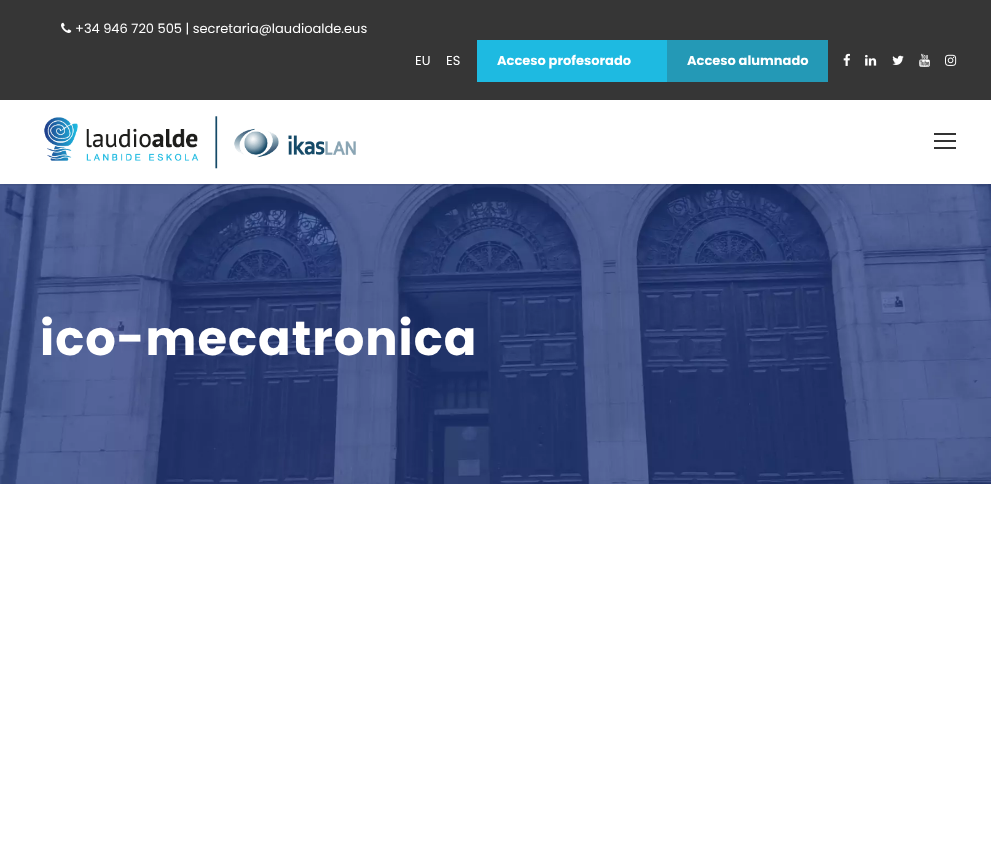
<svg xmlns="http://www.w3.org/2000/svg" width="991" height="860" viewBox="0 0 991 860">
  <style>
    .t1 { font: 13px Poppins; fill: #fff; }
    .t2 { font: bold 13px Poppins; fill: #fff; }
    .t3 { font: bold 48px Poppins; letter-spacing: 1px; fill: #fff; }
  </style>
  <defs>
    <clipPath id="clip1"><rect x="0" y="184" width="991" height="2"/></clipPath>
  </defs>
  <rect width="100%" height="100%" fill="#fff"/>
  <rect x="0" y="0" width="991" height="100" fill="#363636"/>
  <image x="61" y="22" width="11" height="11" href="images/1.png"/>
  <text x="75" y="33" class="t1">+34 946 720 505 | secretaria@laudioalde.eus</text>
  <text x="415" y="65" class="t1">EU</text>
  <text x="446" y="65" class="t1">ES</text>
  <rect x="477" y="40" width="190" height="42" fill="#1ebae1"/>
  <text x="497" y="65" class="t2">Acceso profesorado</text>
  <rect x="667" y="40" width="161" height="42" fill="#2499b6"/>
  <text x="687" y="65" class="t2">Acceso alumnado</text>
  <image x="843" y="53" width="7" height="13" href="images/2.png"/>
  <image x="865" y="54" width="12" height="12" href="images/3.png"/>
  <image x="892" y="55" width="12" height="10" href="images/4.png"/>
  <image x="919" y="53" width="11" height="14" href="images/5.png"/>
  <image x="945" y="54" width="12" height="12" href="images/6.png"/>
  <image x="0" y="184" width="991" height="300" href="images/8.png"/>
  <g clip-path="url(#clip1)">
    <rect x="0" y="101" width="991" height="84" fill="#0000001a" filter="blur(1px)"/>
  </g>
  <image x="44" y="116" width="312" height="53" href="images/7.png"/>
  <rect x="934" y="133" width="22" height="2" fill="#333"/>
  <rect x="934" y="140" width="22" height="2" fill="#333"/>
  <rect x="934" y="147" width="22" height="2" fill="#333"/>
  <text x="40" y="355" class="t3">ico-mecatronica</text>
</svg>
